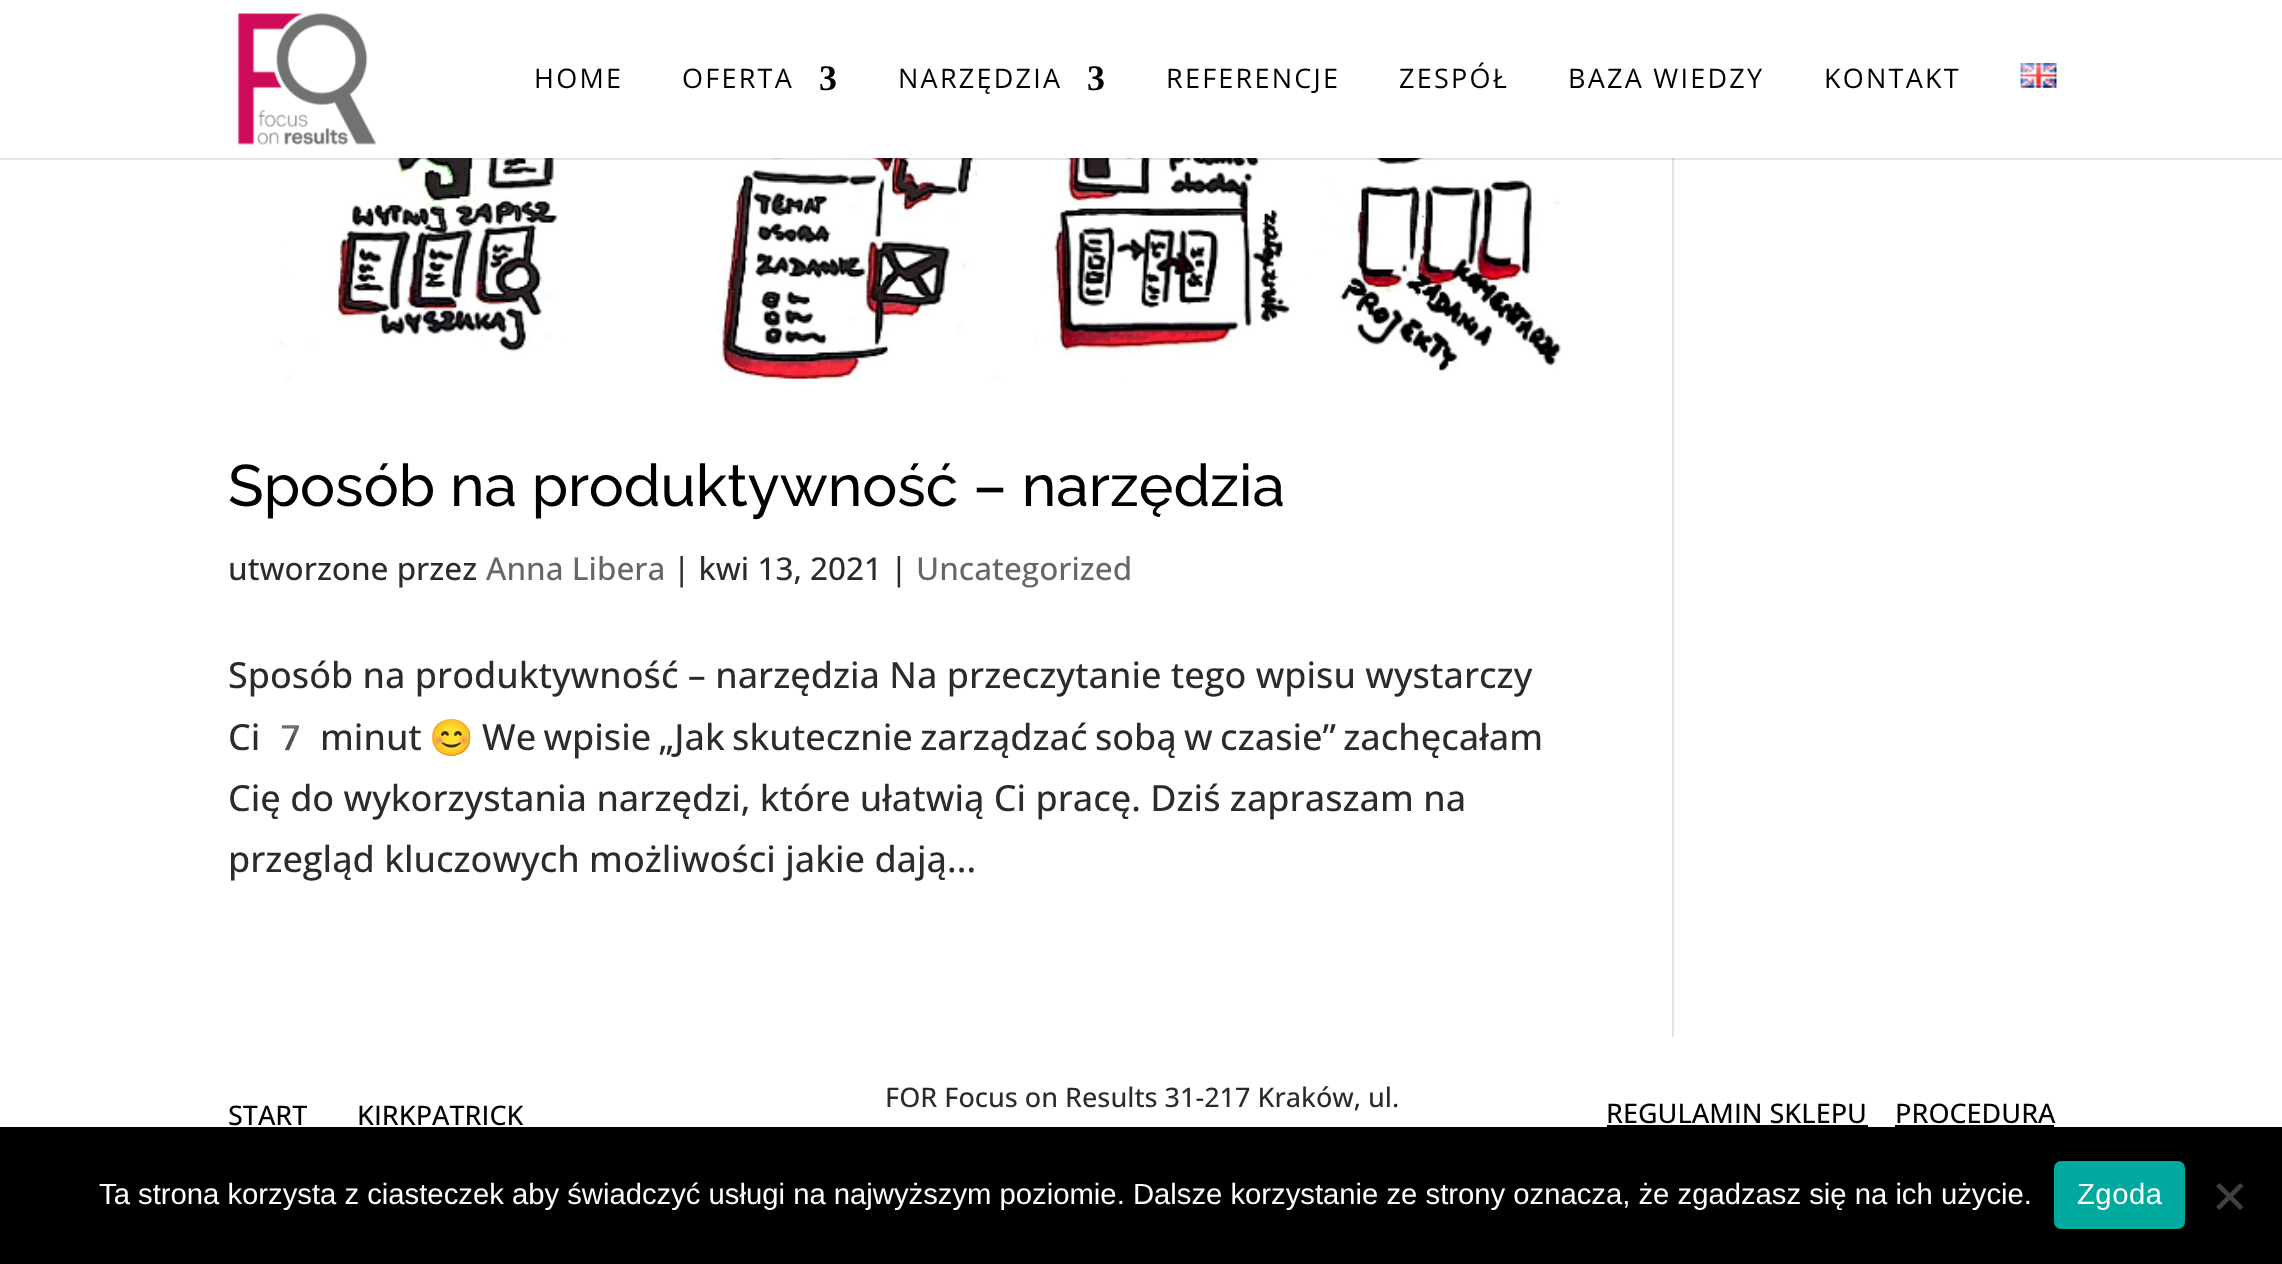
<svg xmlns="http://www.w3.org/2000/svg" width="2282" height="1264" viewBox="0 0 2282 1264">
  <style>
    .t1 { font: 27px Open Sans; letter-spacing: 2.25px; fill: #000; }
    .t2 { font: bold 36px Liberation Serif; letter-spacing: 2.25px; fill: #000; }
    .t3 { font: 500 58.5px Raleway; fill: #000; }
    .t4 { font: 500 31.5px Open Sans; fill: #2b2b2b; }
    .t5 { font: 500 31.5px Open Sans; fill: #666; }
    .t6 { font: 500 36px Open Sans; fill: #2b2b2b; }
    .t7 { font: 36px Noto Color Emoji; fill: #2b2b2b; }
    .t8 { font: 500 27px Open Sans; fill: #2b2b2b; }
    .t9 { font: 500 27px Open Sans; fill: #000; }
    .t10 { font: 29.25px Liberation Sans; fill: #fff; }
    .t11 { font: 29.25px Liberation Sans; letter-spacing: 0.5px; fill: #fff; }
  </style>
  <rect width="100%" height="100%" fill="#fff"/>
  <image x="279" y="158" width="1282" height="224" href="images/3.png"/>
  <rect x="1672" y="158" width="2" height="879" fill="#e2e2e2"/>
  <path d="M0 158V160H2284V2V158Z" fill="#0000001a"/>
  <image x="238" y="13" width="139" height="132" href="images/1.png"/>
  <text x="534" y="88" class="t1">HOME</text>
  <text x="682" y="88" class="t1">OFERTA</text>
  <text x="819" y="90" class="t2">3</text>
  <text x="898" y="88" class="t1">NARZĘDZIA</text>
  <text x="1087" y="90" class="t2">3</text>
  <text x="1166" y="88" class="t1">REFERENCJE</text>
  <text x="1399" y="88" class="t1">ZESPÓŁ</text>
  <text x="1568" y="88" class="t1">BAZA WIEDZY</text>
  <text x="1824" y="88" class="t1">KONTAKT</text>
  <image x="2020" y="63" width="37" height="25" href="images/2.png"/>
  <text x="228" y="506" class="t3">Sposób na produktywność – narzędzia</text>
  <text x="228" y="580" class="t4">utworzone przez</text>
  <text x="486" y="580" class="t5">Anna Libera</text>
  <text x="673" y="580" class="t4">| kwi 13, 2021 |</text>
  <text x="916" y="580" class="t5">Uncategorized</text>
  <text x="228" y="688" class="t6">Sposób na produktywność – narzędzia Na przeczytanie tego wpisu wystarczy</text>
  <text x="228" y="750" class="t6">Ci</text>
  <text x="268" y="750" class="t7">7</text>
  <text x="320" y="750" class="t6">minut</text>
  <text x="429" y="750" class="t7">😊</text>
  <text x="482" y="750" word-spacing="-2" class="t6">We wpisie „Jak skutecznie zarządzać sobą w czasie” zachęcałam</text>
  <text x="228" y="811" class="t6">Cię do wykorzystania narzędzi, które ułatwią Ci pracę. Dziś zapraszam na</text>
  <text x="228" y="872" class="t6">przegląd kluczowych możliwości jakie dają...</text>
  <text x="885" y="1107" class="t8">FOR Focus on Results 31-217 Kraków, ul.</text>
  <text x="228" y="1125" class="t9">START</text>
  <text x="357" y="1125" class="t9">KIRKPATRICK</text>
  <text x="1606" y="1123" class="t9">REGULAMIN SKLEPU</text>
  <rect x="1607" y="1125" width="261" height="2" fill="#000"/>
  <text x="1895" y="1123" class="t9">PROCEDURA</text>
  <rect x="1895" y="1125" width="159" height="2" fill="#000"/>
  <rect x="0" y="1127" width="2282" height="137" fill="#000"/>
  <text x="99" y="1204" class="t10">Ta strona korzysta z ciasteczek aby świadczyć usługi na najwyższym poziomie. Dalsze korzystanie ze strony oznacza, że zgadzasz się na ich użycie.</text>
  <rect x="2054" y="1161" width="131" height="68" rx="7" fill="#00a99d"/>
  <text x="2077" y="1204" class="t11">Zgoda</text>
  <path d="M2240 1183L2243.5 1186L2219.5 1210L2216 1207Z" fill="#404040"/>
  <path d="M2216 1186L2219.5 1183L2243.5 1207L2240 1210Z" fill="#404040"/>
</svg>
